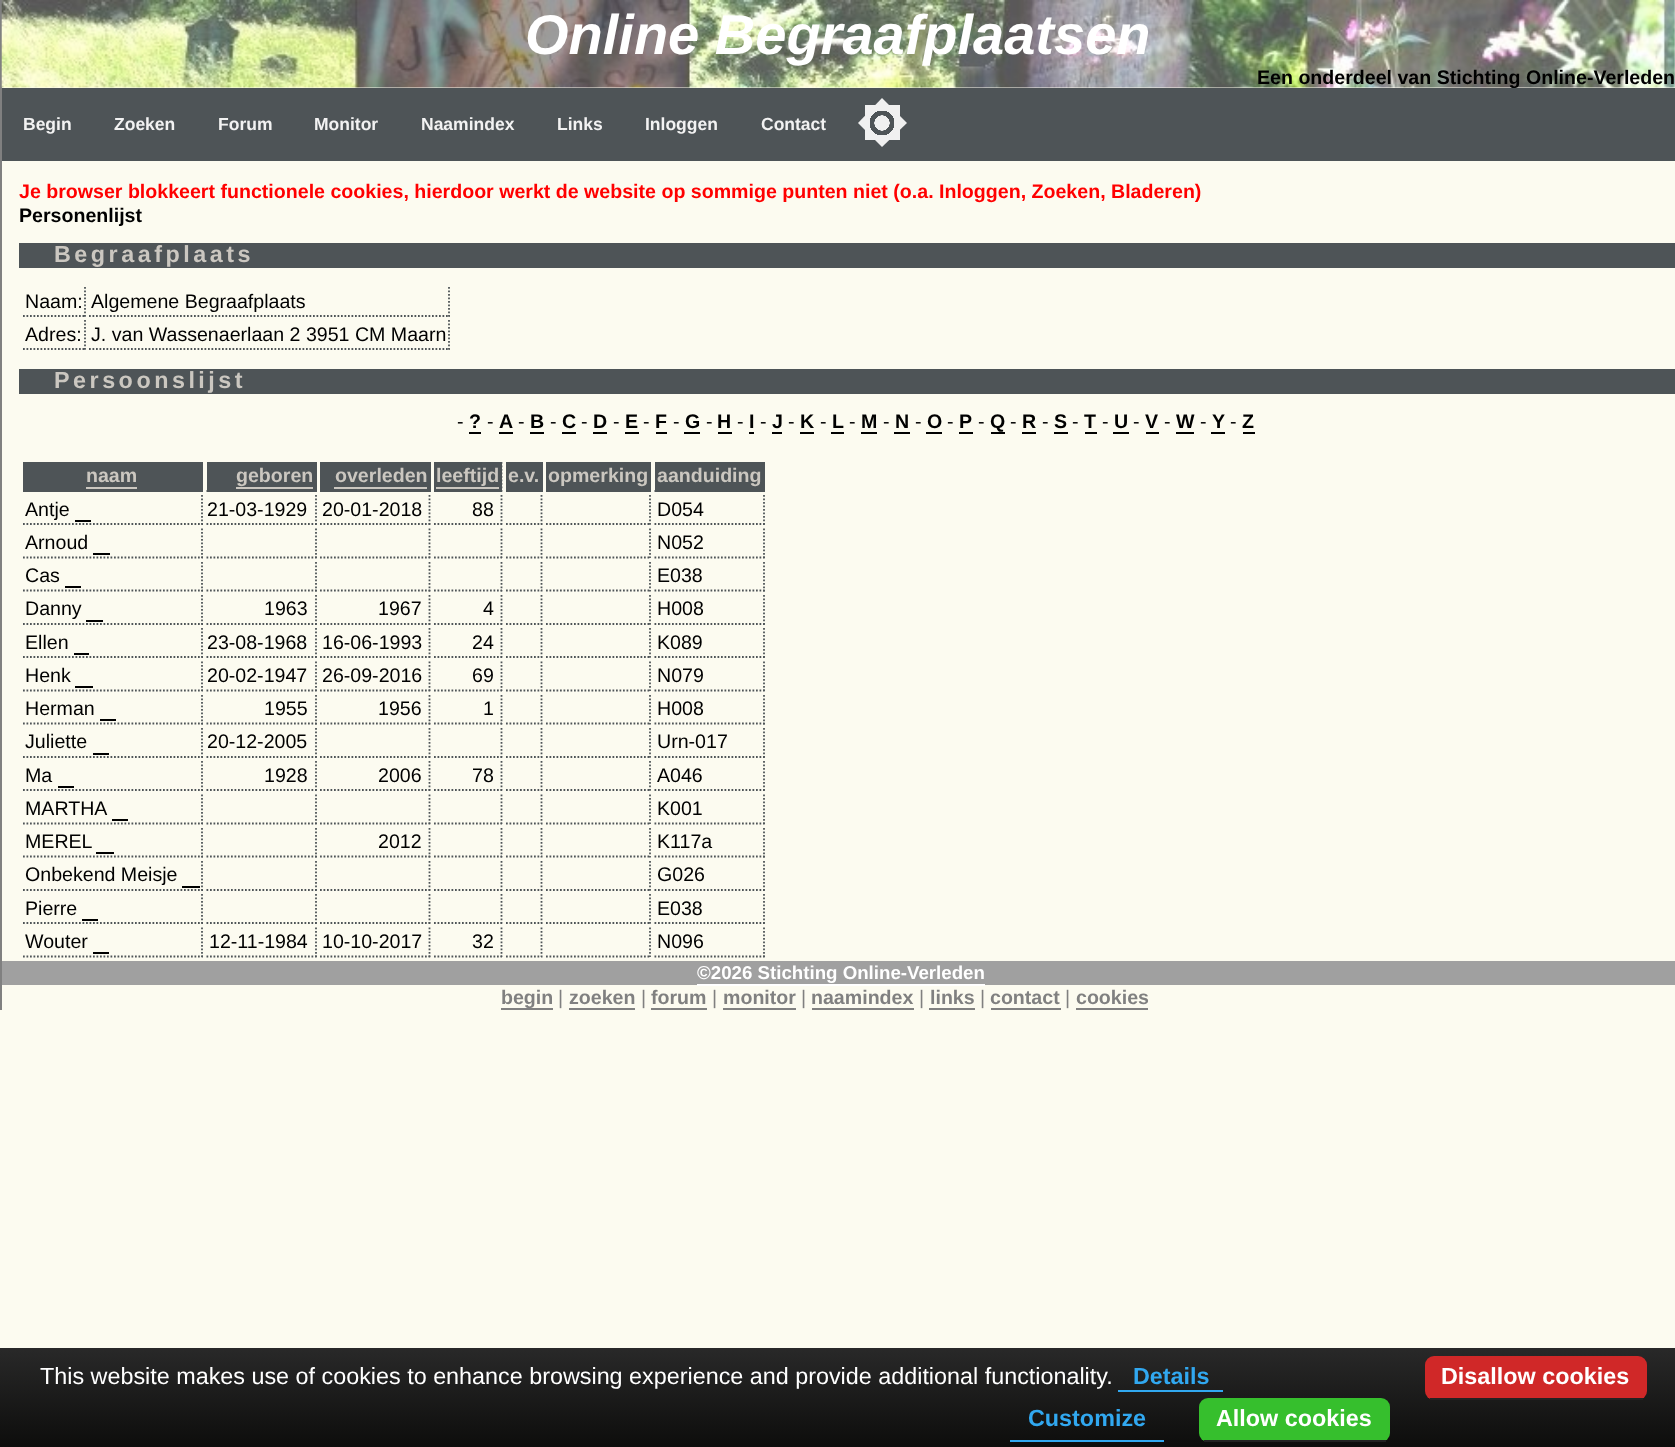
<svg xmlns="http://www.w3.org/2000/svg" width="1675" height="1447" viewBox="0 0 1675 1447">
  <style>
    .t1 { font: italic bold 56px Liberation Sans; fill: #fff; }
    .t2 { font: bold 19.6px Liberation Sans; fill: #000; }
    .t3 { font: bold 17.5px Liberation Sans; fill: #f2f2f2; }
    .t4 { font: bold 19.6px Liberation Sans; fill: #f00; }
    .t5 { font: bold 23.35px Liberation Sans; letter-spacing: 3.5px; fill: #cbc7c0; }
    .t6 { font: 19.6px Liberation Sans; fill: #000; }
    .t7 { font: bold 19.6px Liberation Sans; fill: #cbc7c0; }
    .t8 { font: bold 18.7px Liberation Sans; fill: #fff; }
    .t9 { font: bold 19.6px Liberation Sans; fill: #808080; }
    .t10 { font: 19.6px Liberation Sans; fill: #808080; }
    .t11 { font: 23.35px Liberation Sans; fill: #fff; }
    .t12 { font: bold 23.35px Liberation Sans; fill: #31a8f0; }
    .t13 { font: bold 23.35px Liberation Sans; fill: #fff; }
  </style>
  <defs>
    <radialGradient id="g1" gradientUnits="userSpaceOnUse" cx="882" cy="123" r="25"><stop offset="0" stop-color="#4e5457"/><stop offset="0.5" stop-color="#4e5457"/><stop offset="0.5" stop-color="#f0f0f0"/></radialGradient>
    <radialGradient id="g2" gradientUnits="userSpaceOnUse" cx="882" cy="123" r="25"><stop offset="0.3" stop-color="#f0f0f0"/><stop offset="0.31" stop-color="#f0f0f0" stop-opacity="0"/><stop offset="0.5" stop-color="#f0f0f0" stop-opacity="0"/><stop offset="0.5" stop-color="#f0f0f0"/></radialGradient>
    <linearGradient id="g3" gradientUnits="userSpaceOnUse" x1="844" y1="1347" x2="844" y2="1447"><stop offset="0" stop-color="#292929"/><stop offset="1" stop-color="#0d0d0c"/></linearGradient>
  </defs>
  <rect width="100%" height="100%" fill="#fcfbf0"/>
  <rect x="0" y="0" width="2" height="1010" fill="#808080"/>
  <image x="1" y="0" width="1674" height="88" href="images/1.png"/>
  <text x="525" y="54" class="t1">Online Begraafplaatsen</text>
  <text x="1257" y="84" class="t2">Een onderdeel van Stichting Online-Verleden</text>
  <rect x="2" y="88" width="1673" height="73" fill="#4e5457"/>
  <text x="23" y="130" class="t3">Begin</text>
  <text x="114" y="130" class="t3">Zoeken</text>
  <text x="218" y="130" class="t3">Forum</text>
  <text x="314" y="130" class="t3">Monitor</text>
  <text x="421" y="130" class="t3">Naamindex</text>
  <text x="557" y="130" class="t3">Links</text>
  <text x="645" y="130" class="t3">Inloggen</text>
  <text x="761" y="130" class="t3">Contact</text>
  <rect x="865" y="105" width="35" height="35" fill="url(#g1)"/>
  <path d="M882 147L858 123L882 98L907 123Z" fill="url(#g2)"/>
  <path d="M874.5 122L872 120.5H873.5Z" fill="#4e5457"/>
  <text x="19" y="198" class="t4">Je browser blokkeert functionele cookies, hierdoor werkt de website op sommige punten niet (o.a. Inloggen, Zoeken, Bladeren)</text>
  <text x="19" y="222" class="t2">Personenlijst</text>
  <rect x="19" y="243" width="1656" height="25" fill="#4e5457"/>
  <text x="54" y="262" class="t5">Begraafplaats</text>
  <path d="M85 287V317M23 316H86" fill="none" stroke="#4e5457" stroke-width="1.8" stroke-dasharray="1.75 1.75"/>
  <text x="25" y="308" class="t6">Naam:</text>
  <path d="M449 287V317" fill="none" stroke="#4e5457" stroke-width="1.8" stroke-dasharray="1.75 1.75"/>
  <path d="M89 316H450" fill="none" stroke="#4e5457" stroke-width="1.8" stroke-dasharray="1.75 1.75"/>
  <text x="91" y="308" class="t6">Algemene Begraafplaats</text>
  <path d="M85 320V350M23 349H86" fill="none" stroke="#4e5457" stroke-width="1.8" stroke-dasharray="1.75 1.75"/>
  <text x="25" y="341" class="t6">Adres:</text>
  <path d="M449 320V350" fill="none" stroke="#4e5457" stroke-width="1.8" stroke-dasharray="1.75 1.75"/>
  <path d="M89 349H450" fill="none" stroke="#4e5457" stroke-width="1.8" stroke-dasharray="1.75 1.75"/>
  <text x="91" y="341" class="t6">J. van Wassenaerlaan 2 3951 CM Maarn</text>
  <rect x="19" y="369" width="1656" height="25" fill="#4e5457"/>
  <text x="54" y="388" class="t5">Persoonslijst</text>
  <text x="457" y="428" class="t6">-</text>
  <text x="469" y="428" class="t2">?</text>
  <rect x="469" y="432" width="12" height="2" fill="#000"/>
  <text x="487" y="428" class="t6">-</text>
  <text x="499" y="428" class="t2">A</text>
  <rect x="499" y="432" width="14" height="2" fill="#000"/>
  <text x="518" y="428" class="t6">-</text>
  <text x="530" y="428" class="t2">B</text>
  <rect x="530" y="432" width="14" height="2" fill="#000"/>
  <text x="550" y="428" class="t6">-</text>
  <text x="562" y="428" class="t2">C</text>
  <rect x="562" y="432" width="14" height="2" fill="#000"/>
  <text x="581" y="428" class="t6">-</text>
  <text x="593" y="428" class="t2">D</text>
  <rect x="593" y="432" width="14" height="2" fill="#000"/>
  <text x="613" y="428" class="t6">-</text>
  <text x="625" y="428" class="t2">E</text>
  <rect x="625" y="432" width="14" height="2" fill="#000"/>
  <text x="643" y="428" class="t6">-</text>
  <text x="655" y="428" class="t2">F</text>
  <rect x="656" y="432" width="11" height="2" fill="#000"/>
  <text x="673" y="428" class="t6">-</text>
  <text x="685" y="428" class="t2">G</text>
  <rect x="684" y="432" width="16" height="2" fill="#000"/>
  <text x="706" y="428" class="t6">-</text>
  <text x="717" y="428" class="t2">H</text>
  <rect x="718" y="432" width="14" height="2" fill="#000"/>
  <text x="737" y="428" class="t6">-</text>
  <text x="749" y="428" class="t2">I</text>
  <rect x="749" y="432" width="5" height="2" fill="#000"/>
  <text x="760" y="428" class="t6">-</text>
  <text x="772" y="428" class="t2">J</text>
  <rect x="772" y="432" width="10" height="2" fill="#000"/>
  <text x="788" y="428" class="t6">-</text>
  <text x="800" y="428" class="t2">K</text>
  <rect x="800" y="432" width="14" height="2" fill="#000"/>
  <text x="820" y="428" class="t6">-</text>
  <text x="832" y="428" class="t2">L</text>
  <rect x="831" y="432" width="13" height="2" fill="#000"/>
  <text x="849" y="428" class="t6">-</text>
  <text x="861" y="428" class="t2">M</text>
  <rect x="861" y="432" width="16" height="2" fill="#000"/>
  <text x="883" y="428" class="t6">-</text>
  <text x="895" y="428" class="t2">N</text>
  <rect x="894" y="432" width="16" height="2" fill="#000"/>
  <text x="915" y="428" class="t6">-</text>
  <text x="927" y="428" class="t2">O</text>
  <rect x="926" y="432" width="16" height="2" fill="#000"/>
  <text x="947" y="428" class="t6">-</text>
  <text x="959" y="428" class="t2">P</text>
  <rect x="959" y="432" width="14" height="2" fill="#000"/>
  <text x="978" y="428" class="t6">-</text>
  <text x="990" y="428" class="t2">Q</text>
  <rect x="991" y="432" width="14" height="2" fill="#000"/>
  <text x="1010" y="428" class="t6">-</text>
  <text x="1022" y="428" class="t2">R</text>
  <rect x="1022" y="432" width="14" height="2" fill="#000"/>
  <text x="1042" y="428" class="t6">-</text>
  <text x="1054" y="428" class="t2">S</text>
  <rect x="1054" y="432" width="14" height="2" fill="#000"/>
  <text x="1072" y="428" class="t6">-</text>
  <text x="1084" y="428" class="t2">T</text>
  <rect x="1085" y="432" width="12" height="2" fill="#000"/>
  <text x="1102" y="428" class="t6">-</text>
  <text x="1114" y="428" class="t2">U</text>
  <rect x="1113" y="432" width="16" height="2" fill="#000"/>
  <text x="1133" y="428" class="t6">-</text>
  <text x="1145" y="428" class="t2">V</text>
  <rect x="1146" y="432" width="13" height="2" fill="#000"/>
  <text x="1164" y="428" class="t6">-</text>
  <text x="1176" y="428" class="t2">W</text>
  <rect x="1176" y="432" width="18" height="2" fill="#000"/>
  <text x="1200" y="428" class="t6">-</text>
  <text x="1212" y="428" class="t2">Y</text>
  <rect x="1211" y="432" width="14" height="2" fill="#000"/>
  <text x="1230" y="428" class="t6">-</text>
  <text x="1242" y="428" class="t2">Z</text>
  <rect x="1243" y="432" width="12" height="2" fill="#000"/>
  <rect x="23" y="462" width="180" height="30" fill="#4e5457"/>
  <text x="86" y="482" class="t7">naam</text>
  <rect x="86" y="487" width="51" height="2" fill="#cbc7c0"/>
  <rect x="207" y="462" width="110" height="30" fill="#4e5457"/>
  <path d="M206.5 491H317" fill="none" stroke="#4e5457" stroke-width="1.8" stroke-dasharray="1.75 1.75"/>
  <text x="236" y="482" class="t7">geboren</text>
  <rect x="236" y="487" width="77" height="2" fill="#cbc7c0"/>
  <rect x="320" y="462" width="111" height="30" fill="#4e5457"/>
  <text x="335" y="482" class="t7">overleden</text>
  <rect x="334" y="487" width="93" height="2" fill="#cbc7c0"/>
  <rect x="434" y="462" width="68" height="30" fill="#4e5457"/>
  <path d="M501.5 462V492" fill="none" stroke="#4e5457" stroke-width="1.8" stroke-dasharray="1.75 1.75"/>
  <text x="436" y="482" class="t7">leeftijd</text>
  <rect x="436" y="487" width="63" height="2" fill="#cbc7c0"/>
  <rect x="506" y="462" width="37" height="30" fill="#4e5457"/>
  <text x="508" y="482" class="t7">e.v.</text>
  <rect x="546" y="462" width="105" height="30" fill="#4e5457"/>
  <text x="548" y="482" class="t7">opmerking</text>
  <rect x="655" y="462" width="110" height="30" fill="#4e5457"/>
  <path d="M654.5 491H765" fill="none" stroke="#4e5457" stroke-width="1.8" stroke-dasharray="1.75 1.75"/>
  <text x="657" y="482" class="t7">aanduiding</text>
  <path d="M202 495V525" fill="none" stroke="#4e5457" stroke-width="1.8" stroke-dasharray="1.75 1.75"/>
  <path d="M23 524H203" fill="none" stroke="#4e5457" stroke-width="1.8" stroke-dasharray="1.75 1.75"/>
  <text x="25" y="516" class="t6">Antje</text>
  <rect x="75" y="520" width="16" height="2" fill="#000"/>
  <path d="M316 495V525" fill="none" stroke="#4e5457" stroke-width="1.8" stroke-dasharray="1.75 1.75"/>
  <path d="M206.5 524H317" fill="none" stroke="#4e5457" stroke-width="1.8" stroke-dasharray="1.75 1.75"/>
  <text x="207" y="516" class="t6">21-03-1929</text>
  <path d="M429.5 495V525" fill="none" stroke="#4e5457" stroke-width="1.8" stroke-dasharray="1.75 1.75"/>
  <path d="M320 524H430.5" fill="none" stroke="#4e5457" stroke-width="1.8" stroke-dasharray="1.75 1.75"/>
  <text x="322" y="516" class="t6">20-01-2018</text>
  <path d="M501.5 495V525" fill="none" stroke="#4e5457" stroke-width="1.8" stroke-dasharray="1.75 1.75"/>
  <path d="M434 524H502" fill="none" stroke="#4e5457" stroke-width="1.8" stroke-dasharray="1.75 1.75"/>
  <text x="472" y="516" class="t6">88</text>
  <path d="M541.5 495V525M506 524H542.5" fill="none" stroke="#4e5457" stroke-width="1.8" stroke-dasharray="1.75 1.75"/>
  <path d="M650 495V525" fill="none" stroke="#4e5457" stroke-width="1.8" stroke-dasharray="1.75 1.75"/>
  <path d="M546 524H651" fill="none" stroke="#4e5457" stroke-width="1.8" stroke-dasharray="1.75 1.75"/>
  <path d="M764 495V525" fill="none" stroke="#4e5457" stroke-width="1.8" stroke-dasharray="1.75 1.75"/>
  <path d="M654.5 524H765" fill="none" stroke="#4e5457" stroke-width="1.8" stroke-dasharray="1.75 1.75"/>
  <text x="657" y="516" class="t6">D054</text>
  <path d="M202 528.5V558" fill="none" stroke="#4e5457" stroke-width="1.8" stroke-dasharray="1.75 1.75"/>
  <path d="M23 557.5H203" fill="none" stroke="#4e5457" stroke-width="1.8" stroke-dasharray="1.75 1.75"/>
  <text x="25" y="549" class="t6">Arnoud</text>
  <rect x="93" y="553" width="17" height="2" fill="#000"/>
  <path d="M316 528.5V558" fill="none" stroke="#4e5457" stroke-width="1.8" stroke-dasharray="1.75 1.75"/>
  <path d="M206.5 557.5H317" fill="none" stroke="#4e5457" stroke-width="1.8" stroke-dasharray="1.75 1.75"/>
  <path d="M429.5 528.5V558" fill="none" stroke="#4e5457" stroke-width="1.8" stroke-dasharray="1.75 1.75"/>
  <path d="M320 557.5H430.5" fill="none" stroke="#4e5457" stroke-width="1.8" stroke-dasharray="1.75 1.75"/>
  <path d="M501.5 528.5V558" fill="none" stroke="#4e5457" stroke-width="1.8" stroke-dasharray="1.75 1.75"/>
  <path d="M434 557.5H502" fill="none" stroke="#4e5457" stroke-width="1.8" stroke-dasharray="1.75 1.75"/>
  <path d="M541.5 528.5V558M506 557.5H542.5" fill="none" stroke="#4e5457" stroke-width="1.8" stroke-dasharray="1.75 1.75"/>
  <path d="M650 528.5V558" fill="none" stroke="#4e5457" stroke-width="1.8" stroke-dasharray="1.75 1.75"/>
  <path d="M546 557.5H651" fill="none" stroke="#4e5457" stroke-width="1.8" stroke-dasharray="1.75 1.75"/>
  <path d="M764 528.5V558" fill="none" stroke="#4e5457" stroke-width="1.8" stroke-dasharray="1.75 1.75"/>
  <path d="M654.5 557.5H765" fill="none" stroke="#4e5457" stroke-width="1.8" stroke-dasharray="1.75 1.75"/>
  <text x="657" y="549" class="t6">N052</text>
  <path d="M202 562V591.5" fill="none" stroke="#4e5457" stroke-width="1.8" stroke-dasharray="1.75 1.75"/>
  <path d="M23 590.5H203" fill="none" stroke="#4e5457" stroke-width="1.8" stroke-dasharray="1.75 1.75"/>
  <text x="25" y="582" class="t6">Cas</text>
  <rect x="65" y="586" width="16" height="2" fill="#000"/>
  <path d="M316 562V591.5" fill="none" stroke="#4e5457" stroke-width="1.8" stroke-dasharray="1.75 1.75"/>
  <path d="M206.5 590.5H317" fill="none" stroke="#4e5457" stroke-width="1.8" stroke-dasharray="1.75 1.75"/>
  <path d="M429.5 562V591.5" fill="none" stroke="#4e5457" stroke-width="1.8" stroke-dasharray="1.75 1.75"/>
  <path d="M320 590.5H430.5" fill="none" stroke="#4e5457" stroke-width="1.8" stroke-dasharray="1.75 1.75"/>
  <path d="M501.5 562V591.5" fill="none" stroke="#4e5457" stroke-width="1.8" stroke-dasharray="1.75 1.75"/>
  <path d="M434 590.5H502" fill="none" stroke="#4e5457" stroke-width="1.8" stroke-dasharray="1.75 1.75"/>
  <path d="M541.5 562V591.5M506 590.5H542.5" fill="none" stroke="#4e5457" stroke-width="1.8" stroke-dasharray="1.75 1.75"/>
  <path d="M650 562V591.5" fill="none" stroke="#4e5457" stroke-width="1.8" stroke-dasharray="1.75 1.75"/>
  <path d="M546 590.5H651" fill="none" stroke="#4e5457" stroke-width="1.8" stroke-dasharray="1.75 1.75"/>
  <path d="M764 562V591.5" fill="none" stroke="#4e5457" stroke-width="1.8" stroke-dasharray="1.75 1.75"/>
  <path d="M654.5 590.5H765" fill="none" stroke="#4e5457" stroke-width="1.8" stroke-dasharray="1.75 1.75"/>
  <text x="657" y="582" class="t6">E038</text>
  <path d="M202 595V625" fill="none" stroke="#4e5457" stroke-width="1.8" stroke-dasharray="1.75 1.75"/>
  <path d="M23 624H203" fill="none" stroke="#4e5457" stroke-width="1.8" stroke-dasharray="1.75 1.75"/>
  <text x="25" y="615" class="t6">Danny</text>
  <rect x="86" y="620" width="17" height="2" fill="#000"/>
  <path d="M316 595V625" fill="none" stroke="#4e5457" stroke-width="1.8" stroke-dasharray="1.75 1.75"/>
  <path d="M206.5 624H317" fill="none" stroke="#4e5457" stroke-width="1.8" stroke-dasharray="1.75 1.75"/>
  <text x="264" y="615" class="t6">1963</text>
  <path d="M429.5 595V625" fill="none" stroke="#4e5457" stroke-width="1.8" stroke-dasharray="1.75 1.75"/>
  <path d="M320 624H430.5" fill="none" stroke="#4e5457" stroke-width="1.8" stroke-dasharray="1.75 1.75"/>
  <text x="378" y="615" class="t6">1967</text>
  <path d="M501.5 595V625" fill="none" stroke="#4e5457" stroke-width="1.8" stroke-dasharray="1.75 1.75"/>
  <path d="M434 624H502" fill="none" stroke="#4e5457" stroke-width="1.8" stroke-dasharray="1.75 1.75"/>
  <text x="483" y="615" class="t6">4</text>
  <path d="M541.5 595V625M506 624H542.5" fill="none" stroke="#4e5457" stroke-width="1.8" stroke-dasharray="1.75 1.75"/>
  <path d="M650 595V625" fill="none" stroke="#4e5457" stroke-width="1.8" stroke-dasharray="1.75 1.75"/>
  <path d="M546 624H651" fill="none" stroke="#4e5457" stroke-width="1.8" stroke-dasharray="1.75 1.75"/>
  <path d="M764 595V625" fill="none" stroke="#4e5457" stroke-width="1.8" stroke-dasharray="1.75 1.75"/>
  <path d="M654.5 624H765" fill="none" stroke="#4e5457" stroke-width="1.8" stroke-dasharray="1.75 1.75"/>
  <text x="657" y="615" class="t6">H008</text>
  <path d="M202 628V658" fill="none" stroke="#4e5457" stroke-width="1.8" stroke-dasharray="1.75 1.75"/>
  <path d="M23 657H203" fill="none" stroke="#4e5457" stroke-width="1.8" stroke-dasharray="1.75 1.75"/>
  <text x="25" y="649" class="t6">Ellen</text>
  <rect x="74" y="653" width="15" height="2" fill="#000"/>
  <path d="M316 628V658" fill="none" stroke="#4e5457" stroke-width="1.8" stroke-dasharray="1.75 1.75"/>
  <path d="M206.5 657H317" fill="none" stroke="#4e5457" stroke-width="1.8" stroke-dasharray="1.75 1.75"/>
  <text x="207" y="649" class="t6">23-08-1968</text>
  <path d="M429.5 628V658" fill="none" stroke="#4e5457" stroke-width="1.8" stroke-dasharray="1.75 1.75"/>
  <path d="M320 657H430.5" fill="none" stroke="#4e5457" stroke-width="1.8" stroke-dasharray="1.75 1.75"/>
  <text x="322" y="649" class="t6">16-06-1993</text>
  <path d="M501.5 628V658" fill="none" stroke="#4e5457" stroke-width="1.8" stroke-dasharray="1.75 1.75"/>
  <path d="M434 657H502" fill="none" stroke="#4e5457" stroke-width="1.8" stroke-dasharray="1.75 1.75"/>
  <text x="472" y="649" class="t6">24</text>
  <path d="M541.5 628V658M506 657H542.5" fill="none" stroke="#4e5457" stroke-width="1.8" stroke-dasharray="1.75 1.75"/>
  <path d="M650 628V658" fill="none" stroke="#4e5457" stroke-width="1.8" stroke-dasharray="1.75 1.75"/>
  <path d="M546 657H651" fill="none" stroke="#4e5457" stroke-width="1.8" stroke-dasharray="1.75 1.75"/>
  <path d="M764 628V658" fill="none" stroke="#4e5457" stroke-width="1.8" stroke-dasharray="1.75 1.75"/>
  <path d="M654.5 657H765" fill="none" stroke="#4e5457" stroke-width="1.8" stroke-dasharray="1.75 1.75"/>
  <text x="657" y="649" class="t6">K089</text>
  <path d="M202 661.5V691" fill="none" stroke="#4e5457" stroke-width="1.8" stroke-dasharray="1.75 1.75"/>
  <path d="M23 690.5H203" fill="none" stroke="#4e5457" stroke-width="1.8" stroke-dasharray="1.75 1.75"/>
  <text x="25" y="682" class="t6">Henk</text>
  <rect x="75" y="686" width="18" height="2" fill="#000"/>
  <path d="M316 661.5V691" fill="none" stroke="#4e5457" stroke-width="1.8" stroke-dasharray="1.75 1.75"/>
  <path d="M206.5 690.5H317" fill="none" stroke="#4e5457" stroke-width="1.8" stroke-dasharray="1.75 1.75"/>
  <text x="207" y="682" class="t6">20-02-1947</text>
  <path d="M429.5 661.5V691" fill="none" stroke="#4e5457" stroke-width="1.8" stroke-dasharray="1.75 1.75"/>
  <path d="M320 690.5H430.5" fill="none" stroke="#4e5457" stroke-width="1.8" stroke-dasharray="1.75 1.75"/>
  <text x="322" y="682" class="t6">26-09-2016</text>
  <path d="M501.5 661.5V691" fill="none" stroke="#4e5457" stroke-width="1.8" stroke-dasharray="1.75 1.75"/>
  <path d="M434 690.5H502" fill="none" stroke="#4e5457" stroke-width="1.8" stroke-dasharray="1.75 1.75"/>
  <text x="472" y="682" class="t6">69</text>
  <path d="M541.5 661.5V691M506 690.5H542.5" fill="none" stroke="#4e5457" stroke-width="1.8" stroke-dasharray="1.75 1.75"/>
  <path d="M650 661.5V691" fill="none" stroke="#4e5457" stroke-width="1.8" stroke-dasharray="1.75 1.75"/>
  <path d="M546 690.5H651" fill="none" stroke="#4e5457" stroke-width="1.8" stroke-dasharray="1.75 1.75"/>
  <path d="M764 661.5V691" fill="none" stroke="#4e5457" stroke-width="1.8" stroke-dasharray="1.75 1.75"/>
  <path d="M654.5 690.5H765" fill="none" stroke="#4e5457" stroke-width="1.8" stroke-dasharray="1.75 1.75"/>
  <text x="657" y="682" class="t6">N079</text>
  <path d="M202 695V724.5" fill="none" stroke="#4e5457" stroke-width="1.8" stroke-dasharray="1.75 1.75"/>
  <path d="M23 723.5H203" fill="none" stroke="#4e5457" stroke-width="1.8" stroke-dasharray="1.75 1.75"/>
  <text x="25" y="715" class="t6">Herman</text>
  <rect x="100" y="719" width="16" height="2" fill="#000"/>
  <path d="M316 695V724.5" fill="none" stroke="#4e5457" stroke-width="1.8" stroke-dasharray="1.75 1.75"/>
  <path d="M206.5 723.5H317" fill="none" stroke="#4e5457" stroke-width="1.8" stroke-dasharray="1.75 1.75"/>
  <text x="264" y="715" class="t6">1955</text>
  <path d="M429.5 695V724.5" fill="none" stroke="#4e5457" stroke-width="1.8" stroke-dasharray="1.75 1.75"/>
  <path d="M320 723.5H430.5" fill="none" stroke="#4e5457" stroke-width="1.8" stroke-dasharray="1.75 1.75"/>
  <text x="378" y="715" class="t6">1956</text>
  <path d="M501.5 695V724.5" fill="none" stroke="#4e5457" stroke-width="1.8" stroke-dasharray="1.75 1.75"/>
  <path d="M434 723.5H502" fill="none" stroke="#4e5457" stroke-width="1.8" stroke-dasharray="1.75 1.75"/>
  <text x="483" y="715" class="t6">1</text>
  <path d="M541.5 695V724.5M506 723.5H542.5" fill="none" stroke="#4e5457" stroke-width="1.8" stroke-dasharray="1.75 1.75"/>
  <path d="M650 695V724.5" fill="none" stroke="#4e5457" stroke-width="1.8" stroke-dasharray="1.75 1.75"/>
  <path d="M546 723.5H651" fill="none" stroke="#4e5457" stroke-width="1.8" stroke-dasharray="1.75 1.75"/>
  <path d="M764 695V724.5" fill="none" stroke="#4e5457" stroke-width="1.8" stroke-dasharray="1.75 1.75"/>
  <path d="M654.5 723.5H765" fill="none" stroke="#4e5457" stroke-width="1.8" stroke-dasharray="1.75 1.75"/>
  <text x="657" y="715" class="t6">H008</text>
  <path d="M202 728V758" fill="none" stroke="#4e5457" stroke-width="1.8" stroke-dasharray="1.75 1.75"/>
  <path d="M23 757H203" fill="none" stroke="#4e5457" stroke-width="1.8" stroke-dasharray="1.75 1.75"/>
  <text x="25" y="748" class="t6">Juliette</text>
  <rect x="93" y="753" width="16" height="2" fill="#000"/>
  <path d="M316 728V758" fill="none" stroke="#4e5457" stroke-width="1.8" stroke-dasharray="1.75 1.75"/>
  <path d="M206.5 757H317" fill="none" stroke="#4e5457" stroke-width="1.8" stroke-dasharray="1.75 1.75"/>
  <text x="207" y="748" class="t6">20-12-2005</text>
  <path d="M429.5 728V758" fill="none" stroke="#4e5457" stroke-width="1.8" stroke-dasharray="1.75 1.75"/>
  <path d="M320 757H430.5" fill="none" stroke="#4e5457" stroke-width="1.8" stroke-dasharray="1.75 1.75"/>
  <path d="M501.5 728V758" fill="none" stroke="#4e5457" stroke-width="1.8" stroke-dasharray="1.75 1.75"/>
  <path d="M434 757H502" fill="none" stroke="#4e5457" stroke-width="1.8" stroke-dasharray="1.75 1.75"/>
  <path d="M541.5 728V758M506 757H542.5" fill="none" stroke="#4e5457" stroke-width="1.8" stroke-dasharray="1.75 1.75"/>
  <path d="M650 728V758" fill="none" stroke="#4e5457" stroke-width="1.8" stroke-dasharray="1.75 1.75"/>
  <path d="M546 757H651" fill="none" stroke="#4e5457" stroke-width="1.8" stroke-dasharray="1.75 1.75"/>
  <path d="M764 728V758" fill="none" stroke="#4e5457" stroke-width="1.8" stroke-dasharray="1.75 1.75"/>
  <path d="M654.5 757H765" fill="none" stroke="#4e5457" stroke-width="1.8" stroke-dasharray="1.75 1.75"/>
  <text x="657" y="748" class="t6">Urn-017</text>
  <path d="M202 761V791" fill="none" stroke="#4e5457" stroke-width="1.8" stroke-dasharray="1.75 1.75"/>
  <path d="M23 790H203" fill="none" stroke="#4e5457" stroke-width="1.8" stroke-dasharray="1.75 1.75"/>
  <text x="25" y="782" class="t6">Ma</text>
  <rect x="58" y="786" width="16" height="2" fill="#000"/>
  <path d="M316 761V791" fill="none" stroke="#4e5457" stroke-width="1.8" stroke-dasharray="1.75 1.75"/>
  <path d="M206.5 790H317" fill="none" stroke="#4e5457" stroke-width="1.8" stroke-dasharray="1.75 1.75"/>
  <text x="264" y="782" class="t6">1928</text>
  <path d="M429.5 761V791" fill="none" stroke="#4e5457" stroke-width="1.8" stroke-dasharray="1.75 1.75"/>
  <path d="M320 790H430.5" fill="none" stroke="#4e5457" stroke-width="1.8" stroke-dasharray="1.75 1.75"/>
  <text x="378" y="782" class="t6">2006</text>
  <path d="M501.5 761V791" fill="none" stroke="#4e5457" stroke-width="1.8" stroke-dasharray="1.75 1.75"/>
  <path d="M434 790H502" fill="none" stroke="#4e5457" stroke-width="1.8" stroke-dasharray="1.75 1.75"/>
  <text x="472" y="782" class="t6">78</text>
  <path d="M541.5 761V791M506 790H542.5" fill="none" stroke="#4e5457" stroke-width="1.8" stroke-dasharray="1.75 1.75"/>
  <path d="M650 761V791" fill="none" stroke="#4e5457" stroke-width="1.8" stroke-dasharray="1.75 1.75"/>
  <path d="M546 790H651" fill="none" stroke="#4e5457" stroke-width="1.8" stroke-dasharray="1.75 1.75"/>
  <path d="M764 761V791" fill="none" stroke="#4e5457" stroke-width="1.8" stroke-dasharray="1.75 1.75"/>
  <path d="M654.5 790H765" fill="none" stroke="#4e5457" stroke-width="1.8" stroke-dasharray="1.75 1.75"/>
  <text x="657" y="782" class="t6">A046</text>
  <path d="M202 794.5V824" fill="none" stroke="#4e5457" stroke-width="1.8" stroke-dasharray="1.75 1.75"/>
  <path d="M23 823.5H203" fill="none" stroke="#4e5457" stroke-width="1.8" stroke-dasharray="1.75 1.75"/>
  <text x="25" y="815" class="t6">MARTHA</text>
  <rect x="112" y="819" width="16" height="2" fill="#000"/>
  <path d="M316 794.5V824" fill="none" stroke="#4e5457" stroke-width="1.8" stroke-dasharray="1.75 1.75"/>
  <path d="M206.5 823.5H317" fill="none" stroke="#4e5457" stroke-width="1.8" stroke-dasharray="1.75 1.75"/>
  <path d="M429.5 794.5V824" fill="none" stroke="#4e5457" stroke-width="1.8" stroke-dasharray="1.75 1.75"/>
  <path d="M320 823.5H430.5" fill="none" stroke="#4e5457" stroke-width="1.8" stroke-dasharray="1.75 1.75"/>
  <path d="M501.5 794.5V824" fill="none" stroke="#4e5457" stroke-width="1.8" stroke-dasharray="1.75 1.75"/>
  <path d="M434 823.5H502" fill="none" stroke="#4e5457" stroke-width="1.8" stroke-dasharray="1.75 1.75"/>
  <path d="M541.5 794.5V824M506 823.5H542.5" fill="none" stroke="#4e5457" stroke-width="1.8" stroke-dasharray="1.75 1.75"/>
  <path d="M650 794.5V824" fill="none" stroke="#4e5457" stroke-width="1.8" stroke-dasharray="1.75 1.75"/>
  <path d="M546 823.5H651" fill="none" stroke="#4e5457" stroke-width="1.8" stroke-dasharray="1.75 1.75"/>
  <path d="M764 794.5V824" fill="none" stroke="#4e5457" stroke-width="1.8" stroke-dasharray="1.75 1.75"/>
  <path d="M654.5 823.5H765" fill="none" stroke="#4e5457" stroke-width="1.8" stroke-dasharray="1.75 1.75"/>
  <text x="657" y="815" class="t6">K001</text>
  <path d="M202 828V857.5" fill="none" stroke="#4e5457" stroke-width="1.8" stroke-dasharray="1.75 1.75"/>
  <path d="M23 856.5H203" fill="none" stroke="#4e5457" stroke-width="1.8" stroke-dasharray="1.75 1.75"/>
  <text x="25" y="848" class="t6">MEREL</text>
  <rect x="96" y="852" width="18" height="2" fill="#000"/>
  <path d="M316 828V857.5" fill="none" stroke="#4e5457" stroke-width="1.8" stroke-dasharray="1.75 1.75"/>
  <path d="M206.5 856.5H317" fill="none" stroke="#4e5457" stroke-width="1.8" stroke-dasharray="1.75 1.75"/>
  <path d="M429.5 828V857.5" fill="none" stroke="#4e5457" stroke-width="1.8" stroke-dasharray="1.75 1.75"/>
  <path d="M320 856.5H430.5" fill="none" stroke="#4e5457" stroke-width="1.8" stroke-dasharray="1.75 1.75"/>
  <text x="378" y="848" class="t6">2012</text>
  <path d="M501.5 828V857.5" fill="none" stroke="#4e5457" stroke-width="1.8" stroke-dasharray="1.75 1.75"/>
  <path d="M434 856.5H502" fill="none" stroke="#4e5457" stroke-width="1.8" stroke-dasharray="1.75 1.75"/>
  <path d="M541.5 828V857.5M506 856.5H542.5" fill="none" stroke="#4e5457" stroke-width="1.8" stroke-dasharray="1.75 1.75"/>
  <path d="M650 828V857.5" fill="none" stroke="#4e5457" stroke-width="1.8" stroke-dasharray="1.75 1.75"/>
  <path d="M546 856.5H651" fill="none" stroke="#4e5457" stroke-width="1.8" stroke-dasharray="1.75 1.75"/>
  <path d="M764 828V857.5" fill="none" stroke="#4e5457" stroke-width="1.8" stroke-dasharray="1.75 1.75"/>
  <path d="M654.5 856.5H765" fill="none" stroke="#4e5457" stroke-width="1.8" stroke-dasharray="1.75 1.75"/>
  <text x="657" y="848" class="t6">K117a</text>
  <path d="M202 861V891" fill="none" stroke="#4e5457" stroke-width="1.8" stroke-dasharray="1.75 1.75"/>
  <path d="M23 890H203" fill="none" stroke="#4e5457" stroke-width="1.8" stroke-dasharray="1.75 1.75"/>
  <text x="25" y="881" class="t6">Onbekend Meisje</text>
  <rect x="182" y="886" width="18" height="2" fill="#000"/>
  <path d="M316 861V891" fill="none" stroke="#4e5457" stroke-width="1.8" stroke-dasharray="1.75 1.75"/>
  <path d="M206.5 890H317" fill="none" stroke="#4e5457" stroke-width="1.8" stroke-dasharray="1.75 1.75"/>
  <path d="M429.5 861V891" fill="none" stroke="#4e5457" stroke-width="1.8" stroke-dasharray="1.75 1.75"/>
  <path d="M320 890H430.5" fill="none" stroke="#4e5457" stroke-width="1.8" stroke-dasharray="1.75 1.75"/>
  <path d="M501.5 861V891" fill="none" stroke="#4e5457" stroke-width="1.8" stroke-dasharray="1.75 1.75"/>
  <path d="M434 890H502" fill="none" stroke="#4e5457" stroke-width="1.8" stroke-dasharray="1.75 1.75"/>
  <path d="M541.5 861V891M506 890H542.5" fill="none" stroke="#4e5457" stroke-width="1.8" stroke-dasharray="1.75 1.75"/>
  <path d="M650 861V891" fill="none" stroke="#4e5457" stroke-width="1.8" stroke-dasharray="1.75 1.75"/>
  <path d="M546 890H651" fill="none" stroke="#4e5457" stroke-width="1.8" stroke-dasharray="1.75 1.75"/>
  <path d="M764 861V891" fill="none" stroke="#4e5457" stroke-width="1.8" stroke-dasharray="1.75 1.75"/>
  <path d="M654.5 890H765" fill="none" stroke="#4e5457" stroke-width="1.8" stroke-dasharray="1.75 1.75"/>
  <text x="657" y="881" class="t6">G026</text>
  <path d="M202 894V924" fill="none" stroke="#4e5457" stroke-width="1.8" stroke-dasharray="1.75 1.75"/>
  <path d="M23 923H203" fill="none" stroke="#4e5457" stroke-width="1.8" stroke-dasharray="1.75 1.75"/>
  <text x="25" y="915" class="t6">Pierre</text>
  <rect x="82" y="919" width="16" height="2" fill="#000"/>
  <path d="M316 894V924" fill="none" stroke="#4e5457" stroke-width="1.8" stroke-dasharray="1.75 1.75"/>
  <path d="M206.5 923H317" fill="none" stroke="#4e5457" stroke-width="1.8" stroke-dasharray="1.75 1.75"/>
  <path d="M429.5 894V924" fill="none" stroke="#4e5457" stroke-width="1.8" stroke-dasharray="1.75 1.75"/>
  <path d="M320 923H430.5" fill="none" stroke="#4e5457" stroke-width="1.8" stroke-dasharray="1.75 1.75"/>
  <path d="M501.5 894V924" fill="none" stroke="#4e5457" stroke-width="1.8" stroke-dasharray="1.75 1.75"/>
  <path d="M434 923H502" fill="none" stroke="#4e5457" stroke-width="1.8" stroke-dasharray="1.75 1.75"/>
  <path d="M541.5 894V924M506 923H542.5" fill="none" stroke="#4e5457" stroke-width="1.8" stroke-dasharray="1.75 1.75"/>
  <path d="M650 894V924" fill="none" stroke="#4e5457" stroke-width="1.8" stroke-dasharray="1.75 1.75"/>
  <path d="M546 923H651" fill="none" stroke="#4e5457" stroke-width="1.8" stroke-dasharray="1.75 1.75"/>
  <path d="M764 894V924" fill="none" stroke="#4e5457" stroke-width="1.8" stroke-dasharray="1.75 1.75"/>
  <path d="M654.5 923H765" fill="none" stroke="#4e5457" stroke-width="1.8" stroke-dasharray="1.75 1.75"/>
  <text x="657" y="915" class="t6">E038</text>
  <path d="M202 927.5V957" fill="none" stroke="#4e5457" stroke-width="1.8" stroke-dasharray="1.75 1.75"/>
  <path d="M23 956.5H203" fill="none" stroke="#4e5457" stroke-width="1.8" stroke-dasharray="1.75 1.75"/>
  <text x="25" y="948" class="t6">Wouter</text>
  <rect x="93" y="952" width="16" height="2" fill="#000"/>
  <path d="M316 927.5V957" fill="none" stroke="#4e5457" stroke-width="1.8" stroke-dasharray="1.75 1.75"/>
  <path d="M206.5 956.5H317" fill="none" stroke="#4e5457" stroke-width="1.8" stroke-dasharray="1.75 1.75"/>
  <text x="209" y="948" class="t6">12-11-1984</text>
  <path d="M429.5 927.5V957" fill="none" stroke="#4e5457" stroke-width="1.8" stroke-dasharray="1.75 1.75"/>
  <path d="M320 956.5H430.5" fill="none" stroke="#4e5457" stroke-width="1.8" stroke-dasharray="1.75 1.75"/>
  <text x="322" y="948" class="t6">10-10-2017</text>
  <path d="M501.5 927.5V957" fill="none" stroke="#4e5457" stroke-width="1.8" stroke-dasharray="1.75 1.75"/>
  <path d="M434 956.5H502" fill="none" stroke="#4e5457" stroke-width="1.8" stroke-dasharray="1.75 1.75"/>
  <text x="472" y="948" class="t6">32</text>
  <path d="M541.5 927.5V957M506 956.5H542.5" fill="none" stroke="#4e5457" stroke-width="1.8" stroke-dasharray="1.75 1.75"/>
  <path d="M650 927.5V957" fill="none" stroke="#4e5457" stroke-width="1.8" stroke-dasharray="1.75 1.75"/>
  <path d="M546 956.5H651" fill="none" stroke="#4e5457" stroke-width="1.8" stroke-dasharray="1.75 1.75"/>
  <path d="M764 927.5V957" fill="none" stroke="#4e5457" stroke-width="1.8" stroke-dasharray="1.75 1.75"/>
  <path d="M654.5 956.5H765" fill="none" stroke="#4e5457" stroke-width="1.8" stroke-dasharray="1.75 1.75"/>
  <text x="657" y="948" class="t6">N096</text>
  <rect x="2" y="961" width="1673" height="24" fill="#a0a0a0"/>
  <text x="697" y="979" class="t8">©2026 Stichting Online-Verleden</text>
  <rect x="697" y="984" width="288" height="2" fill="#fff"/>
  <rect x="501" y="1008" width="52" height="2" fill="#808080"/>
  <text x="501" y="1004" class="t9">begin</text>
  <text x="558" y="1004" class="t10">|</text>
  <text x="569" y="1004" class="t9">zoeken</text>
  <rect x="569" y="1008" width="66" height="2" fill="#808080"/>
  <text x="641" y="1004" class="t10">|</text>
  <text x="651" y="1004" class="t9">forum</text>
  <rect x="651" y="1008" width="56" height="2" fill="#808080"/>
  <text x="712" y="1004" class="t10">|</text>
  <text x="723" y="1004" class="t9">monitor</text>
  <rect x="723" y="1008" width="73" height="2" fill="#808080"/>
  <text x="801" y="1004" class="t10">|</text>
  <text x="811" y="1004" class="t9">naamindex</text>
  <rect x="812" y="1008" width="102" height="2" fill="#808080"/>
  <text x="919" y="1004" class="t10">|</text>
  <text x="930" y="1004" class="t9">links</text>
  <rect x="929" y="1008" width="46" height="2" fill="#808080"/>
  <text x="980" y="1004" class="t10">|</text>
  <text x="990" y="1004" class="t9">contact</text>
  <rect x="991" y="1008" width="70" height="2" fill="#808080"/>
  <text x="1065" y="1004" class="t10">|</text>
  <text x="1076" y="1004" class="t9">cookies</text>
  <rect x="1076" y="1008" width="72" height="2" fill="#808080"/>
  <rect x="0" y="1348" width="1675" height="99" fill="url(#g3)"/>
  <text x="40" y="1384" class="t11">This website makes use of cookies to enhance browsing experience and provide additional functionality.</text>
  <text x="1133" y="1384" class="t12">Details</text>
  <rect x="1118" y="1390" width="105" height="2" fill="#31a8f0"/>
  <rect x="1425" y="1356" width="222" height="44" rx="9" fill="#d02828"/>
  <rect x="1430" y="1398" width="213" height="2" fill="#222"/>
  <text x="1441" y="1384" class="t13">Disallow cookies</text>
  <rect x="1010" y="1440" width="154" height="2" fill="#31a8f0"/>
  <text x="1028" y="1426" class="t12">Customize</text>
  <rect x="1199" y="1398" width="191" height="44" rx="9" fill="#36bf2d"/>
  <rect x="1204" y="1440" width="182" height="2" fill="#222"/>
  <text x="1216" y="1426" class="t13">Allow cookies</text>
</svg>
